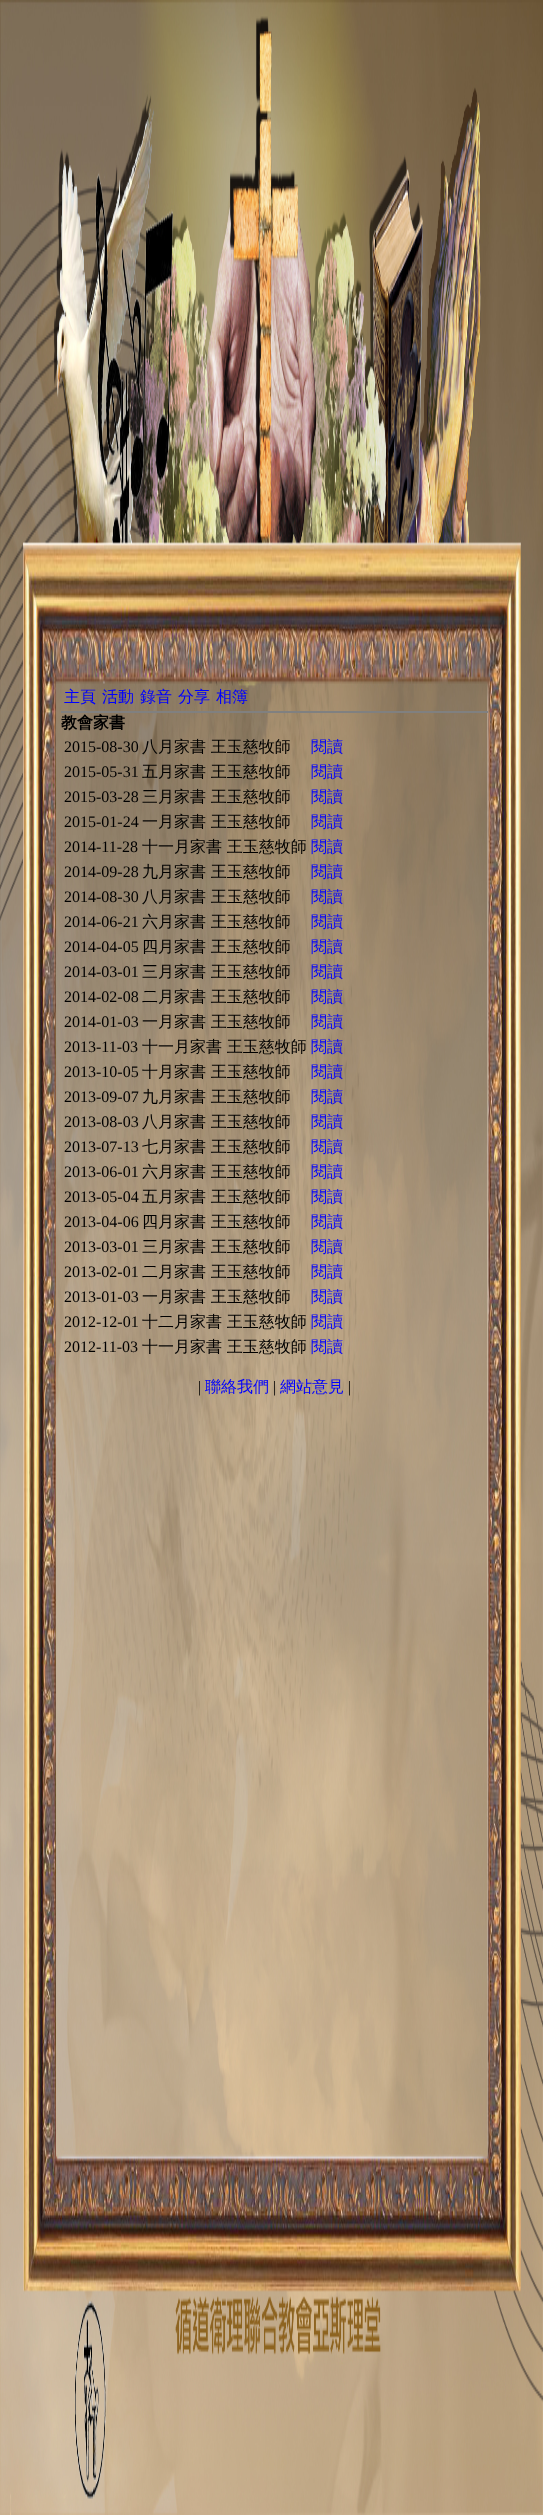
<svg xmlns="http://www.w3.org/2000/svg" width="543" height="2515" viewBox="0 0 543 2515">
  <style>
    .t1 { font: 500 16px WenQuanYi Zen Hei; fill: #00f; }
    .t2 { font: bold 16px WenQuanYi Zen Hei; fill: #000; }
    .t3 { font: 16px Liberation Serif; fill: #000; }
    .t4 { font: 500 16px WenQuanYi Zen Hei; fill: #000; }
  </style>
  <rect width="100%" height="100%" fill="#fff"/>
  <image x="0" y="0" width="543" height="2515" href="images/1.png"/>
  <text x="64" y="702" class="t1">主頁</text>
  <text x="102" y="702" class="t1">活動</text>
  <text x="140" y="702" class="t1">錄音</text>
  <text x="178" y="702" class="t1">分享</text>
  <text x="216" y="702" class="t1">相簿</text>
  <rect x="61" y="711" width="427" height="2" fill="#808080"/>
  <text x="61" y="728" class="t2">教會家書</text>
  <text x="64" y="752" class="t3">2015-08-30</text>
  <text x="142" y="752" class="t4">八月家書 王玉慈牧師</text>
  <text x="311" y="752" class="t1">閱讀</text>
  <text x="64" y="777" class="t3">2015-05-31</text>
  <text x="142" y="777" class="t4">五月家書 王玉慈牧師</text>
  <text x="311" y="777" class="t1">閱讀</text>
  <text x="64" y="802" class="t3">2015-03-28</text>
  <text x="142" y="802" class="t4">三月家書 王玉慈牧師</text>
  <text x="311" y="802" class="t1">閱讀</text>
  <text x="64" y="827" class="t3">2015-01-24</text>
  <text x="142" y="827" class="t4">一月家書 王玉慈牧師</text>
  <text x="311" y="827" class="t1">閱讀</text>
  <text x="64" y="852" class="t3">2014-11-28</text>
  <text x="142" y="852" class="t4">十一月家書 王玉慈牧師</text>
  <text x="311" y="852" class="t1">閱讀</text>
  <text x="64" y="877" class="t3">2014-09-28</text>
  <text x="142" y="877" class="t4">九月家書 王玉慈牧師</text>
  <text x="311" y="877" class="t1">閱讀</text>
  <text x="64" y="902" class="t3">2014-08-30</text>
  <text x="142" y="902" class="t4">八月家書 王玉慈牧師</text>
  <text x="311" y="902" class="t1">閱讀</text>
  <text x="64" y="927" class="t3">2014-06-21</text>
  <text x="142" y="927" class="t4">六月家書 王玉慈牧師</text>
  <text x="311" y="927" class="t1">閱讀</text>
  <text x="64" y="952" class="t3">2014-04-05</text>
  <text x="142" y="952" class="t4">四月家書 王玉慈牧師</text>
  <text x="311" y="952" class="t1">閱讀</text>
  <text x="64" y="977" class="t3">2014-03-01</text>
  <text x="142" y="977" class="t4">三月家書 王玉慈牧師</text>
  <text x="311" y="977" class="t1">閱讀</text>
  <text x="64" y="1002" class="t3">2014-02-08</text>
  <text x="142" y="1002" class="t4">二月家書 王玉慈牧師</text>
  <text x="311" y="1002" class="t1">閱讀</text>
  <text x="64" y="1027" class="t3">2014-01-03</text>
  <text x="142" y="1027" class="t4">一月家書 王玉慈牧師</text>
  <text x="311" y="1027" class="t1">閱讀</text>
  <text x="64" y="1052" class="t3">2013-11-03</text>
  <text x="142" y="1052" class="t4">十一月家書 王玉慈牧師</text>
  <text x="311" y="1052" class="t1">閱讀</text>
  <text x="64" y="1077" class="t3">2013-10-05</text>
  <text x="142" y="1077" class="t4">十月家書 王玉慈牧師</text>
  <text x="311" y="1077" class="t1">閱讀</text>
  <text x="64" y="1102" class="t3">2013-09-07</text>
  <text x="142" y="1102" class="t4">九月家書 王玉慈牧師</text>
  <text x="311" y="1102" class="t1">閱讀</text>
  <text x="64" y="1127" class="t3">2013-08-03</text>
  <text x="142" y="1127" class="t4">八月家書 王玉慈牧師</text>
  <text x="311" y="1127" class="t1">閱讀</text>
  <text x="64" y="1152" class="t3">2013-07-13</text>
  <text x="142" y="1152" class="t4">七月家書 王玉慈牧師</text>
  <text x="311" y="1152" class="t1">閱讀</text>
  <text x="64" y="1177" class="t3">2013-06-01</text>
  <text x="142" y="1177" class="t4">六月家書 王玉慈牧師</text>
  <text x="311" y="1177" class="t1">閱讀</text>
  <text x="64" y="1202" class="t3">2013-05-04</text>
  <text x="142" y="1202" class="t4">五月家書 王玉慈牧師</text>
  <text x="311" y="1202" class="t1">閱讀</text>
  <text x="64" y="1227" class="t3">2013-04-06</text>
  <text x="142" y="1227" class="t4">四月家書 王玉慈牧師</text>
  <text x="311" y="1227" class="t1">閱讀</text>
  <text x="64" y="1252" class="t3">2013-03-01</text>
  <text x="142" y="1252" class="t4">三月家書 王玉慈牧師</text>
  <text x="311" y="1252" class="t1">閱讀</text>
  <text x="64" y="1277" class="t3">2013-02-01</text>
  <text x="142" y="1277" class="t4">二月家書 王玉慈牧師</text>
  <text x="311" y="1277" class="t1">閱讀</text>
  <text x="64" y="1302" class="t3">2013-01-03</text>
  <text x="142" y="1302" class="t4">一月家書 王玉慈牧師</text>
  <text x="311" y="1302" class="t1">閱讀</text>
  <text x="64" y="1327" class="t3">2012-12-01</text>
  <text x="142" y="1327" class="t4">十二月家書 王玉慈牧師</text>
  <text x="311" y="1327" class="t1">閱讀</text>
  <text x="64" y="1352" class="t3">2012-11-03</text>
  <text x="142" y="1352" class="t4">十一月家書 王玉慈牧師</text>
  <text x="311" y="1352" class="t1">閱讀</text>
  <text x="198" y="1392" class="t3">|</text>
  <text x="205" y="1392" class="t1">聯絡我們</text>
  <text x="273" y="1392" class="t3">|</text>
  <text x="280" y="1392" class="t1">網站意見</text>
  <text x="348" y="1392" class="t3">|</text>
</svg>
